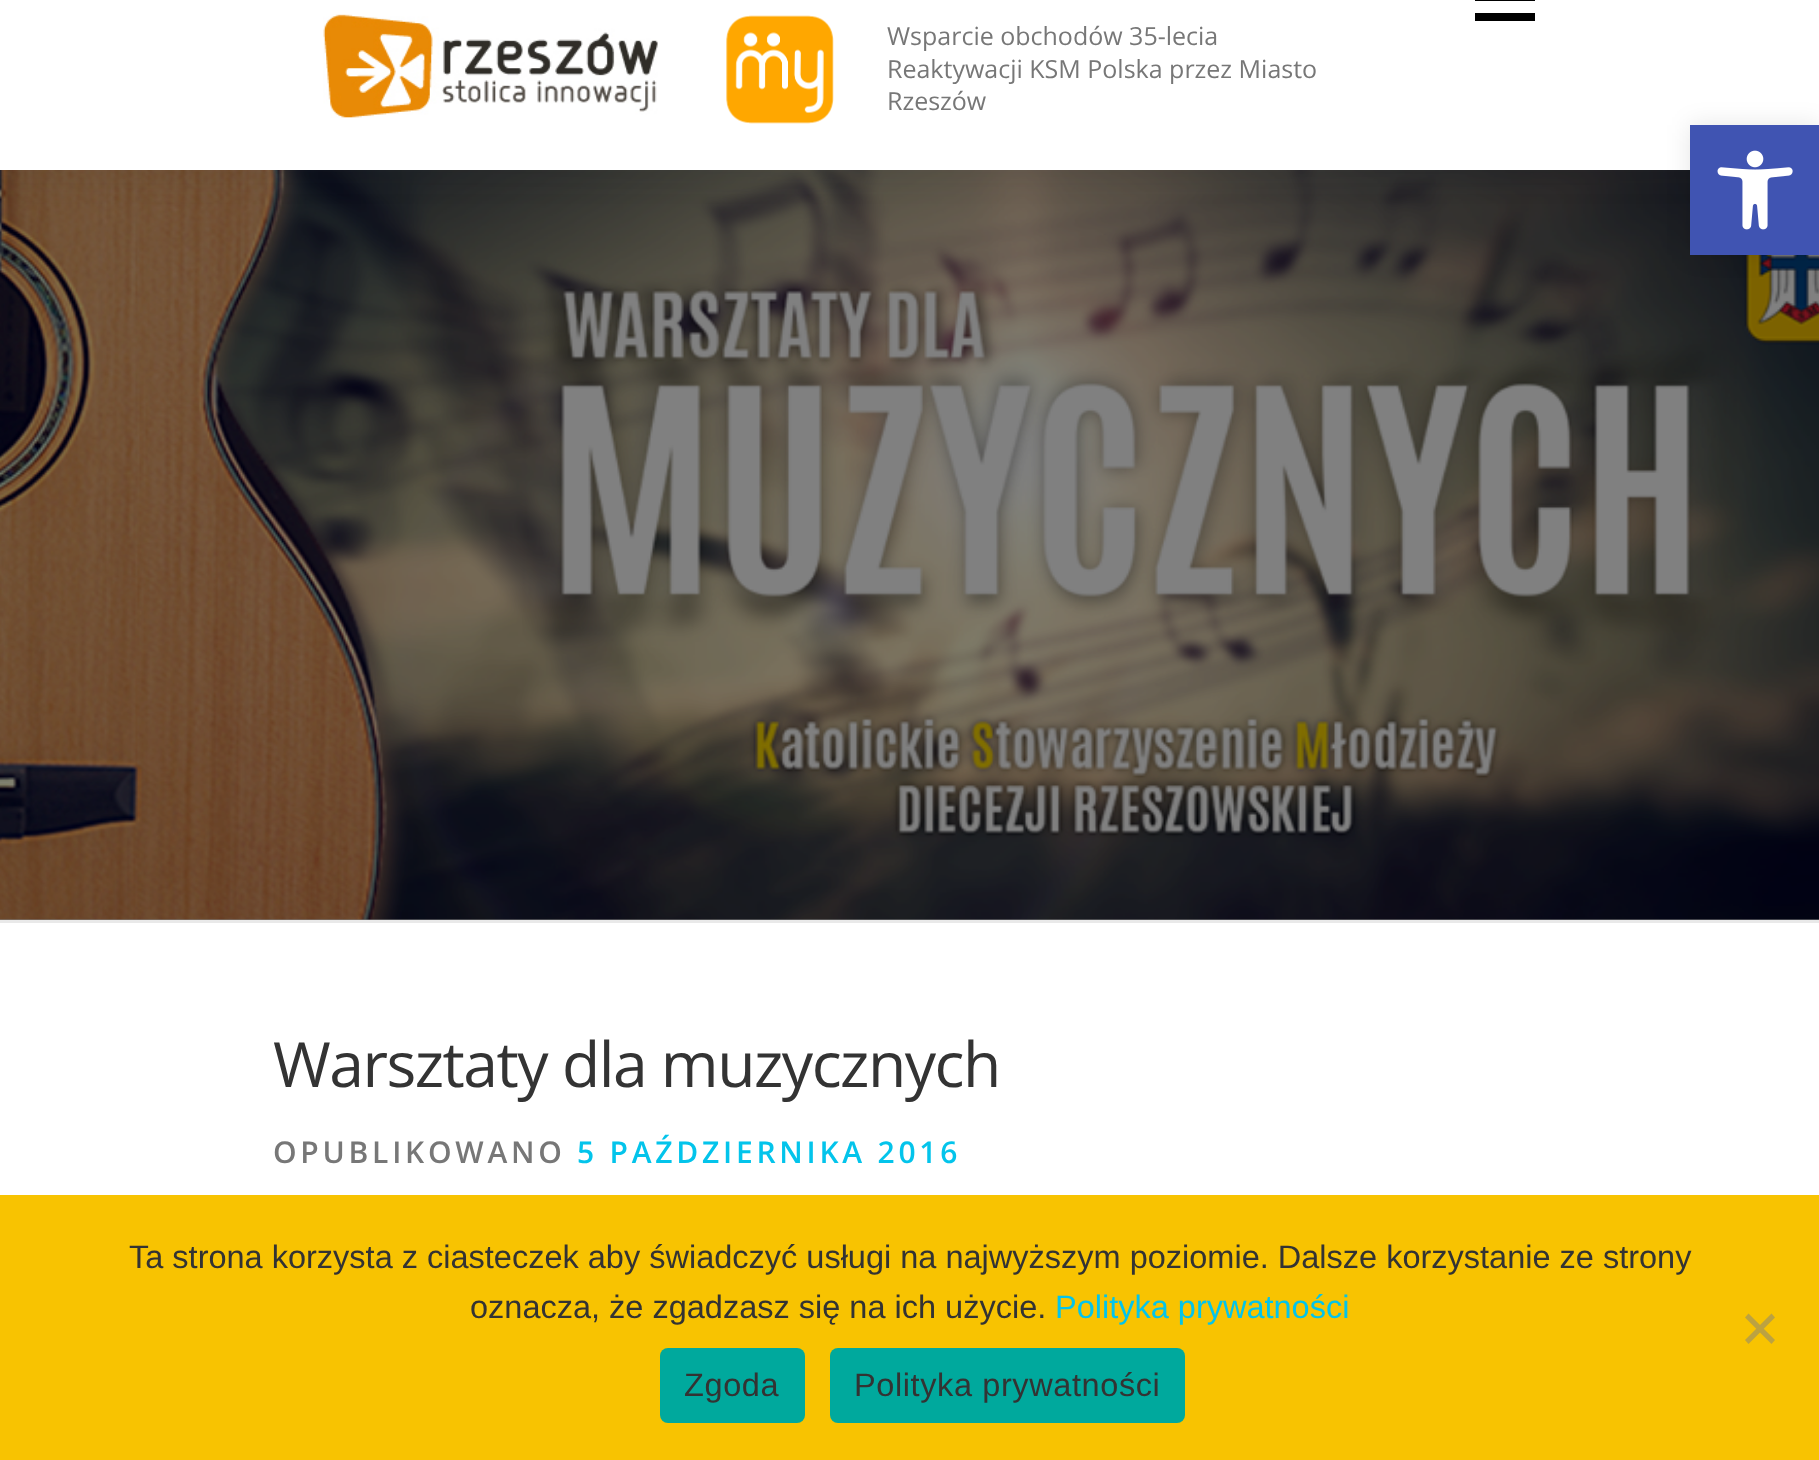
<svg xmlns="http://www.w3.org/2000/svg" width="1819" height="1460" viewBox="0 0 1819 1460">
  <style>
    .t1 { font: 25px Open Sans; fill: #777; }
    .t2 { font: 62.5px Open Sans; letter-spacing: -1.5px; fill: #333; }
    .t3 { font: 600 30px Open Sans; letter-spacing: 3.75px; fill: #777; }
    .t4 { font: 600 30px Open Sans; letter-spacing: 3.75px; fill: #03c4eb; }
    .t5 { font: 32.5px Liberation Sans; fill: #333; }
    .t6 { font: 32.5px Liberation Sans; fill: #03c4eb; }
    .t7 { font: 32.5px Liberation Sans; letter-spacing: 0.6px; fill: #333; }
  </style>
  <rect width="100%" height="100%" fill="#fff"/>
  <rect x="0" y="919" width="1819" height="1" fill="#808080"/>
  <image x="0" y="170" width="1819" height="750" href="images/3.png"/>
  <rect x="0" y="-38" width="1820" height="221" fill="#3232320f" filter="blur(12.5px)"/>
  <rect x="0" y="0" width="1819" height="170" fill="#fff"/>
  <rect x="1475" y="0" width="60" height="1" fill="#000"/>
  <rect x="1475" y="13" width="60" height="8" fill="#000"/>
  <image x="323" y="14" width="335" height="104" href="images/1.png"/>
  <image x="726" y="15" width="108" height="109" href="images/2.png"/>
  <text x="887" y="45" class="t1">Wsparcie obchodów 35-lecia</text>
  <text x="887" y="78" class="t1">Reaktywacji KSM Polska przez Miasto</text>
  <text x="887" y="110" class="t1">Rzeszów</text>
  <rect x="0" y="920" width="1819" height="3" fill="#e9e9e9"/>
  <text x="273" y="1087" class="t2">Warsztaty dla muzycznych</text>
  <text x="273" y="1163" class="t3">OPUBLIKOWANO</text>
  <text x="577" y="1163" class="t4">5 PAŹDZIERNIKA 2016</text>
  <rect x="1690" y="125" width="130" height="130" fill="#0000001a" filter="blur(12.5px)"/>
  <rect x="1690" y="125" width="129" height="130" fill="#4054b2"/>
  <image x="1717" y="150" width="76" height="80" href="images/4.png"/>
  <rect x="0" y="1195" width="1819" height="265" fill="#f8c301"/>
  <text x="129" y="1268" class="t5">Ta strona korzysta z ciasteczek aby świadczyć usługi na najwyższym poziomie. Dalsze korzystanie ze strony</text>
  <text x="470" y="1318" class="t5">oznacza, że zgadzasz się na ich użycie.</text>
  <text x="1055" y="1318" class="t6">Polityka prywatności</text>
  <path d="M1771.5 1313.5L1775 1317.5L1748.5 1344L1745 1340Z" fill="#bca241"/>
  <path d="M1745 1317.5L1748.5 1313.5L1775 1340L1771.5 1344Z" fill="#bca241"/>
  <rect x="660" y="1348" width="145" height="75" rx="8" fill="#00a99d"/>
  <text x="684" y="1396" class="t7">Zgoda</text>
  <rect x="830" y="1348" width="355" height="75" rx="8" fill="#00a99d"/>
  <text x="854" y="1396" class="t7">Polityka prywatności</text>
</svg>
